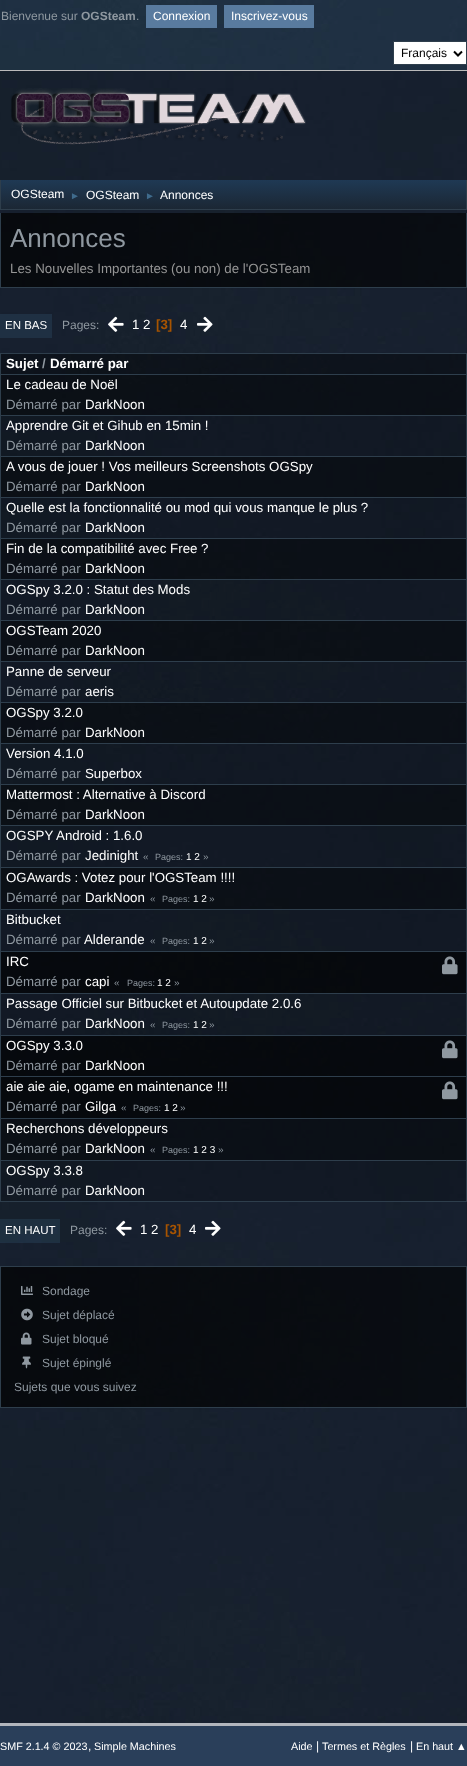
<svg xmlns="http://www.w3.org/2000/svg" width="467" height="1766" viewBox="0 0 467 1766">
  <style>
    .t1 { font: 12px Liberation Sans; fill: #8f98a0; }
    .t2 { font: bold 12px Liberation Sans; fill: #8f98a0; }
    .t3 { font: 12px Liberation Sans; fill: #fff; }
    .t4 { font: 12px Liberation Sans; fill: #000; }
    .t5 { font: 10px Liberation Sans; fill: #3f6b8c; }
    .t6 { font: 26px Liberation Sans; fill: #8f98a0; }
    .t7 { font: 13.3px Liberation Sans; fill: #959595; }
    .t8 { font: 11.5px Liberation Sans; fill: #fff; }
    .t9 { font: 13.3px Liberation Sans; fill: #fff; }
    .t10 { font: bold 13.3px Liberation Sans; fill: #a85400; }
    .t11 { font: bold 13.3px Liberation Sans; fill: #fff; }
    .t12 { font: bold 13.3px Liberation Sans; fill: #8f98a0; }
    .t13 { font: 13.3px Liberation Sans; fill: #8f98a0; }
    .t14 { font: 10px Liberation Sans; fill: #8f98a0; }
    .t15 { font: 9px Liberation Sans; fill: #8f98a0; }
    .t16 { font: 10px Liberation Sans; fill: #fff; }
    .t17 { font: 10.75px Liberation Sans; fill: #fff; }
  </style>
  <defs>
    <linearGradient id="g1" gradientUnits="userSpaceOnUse" x1="234" y1="180" x2="234" y2="209"><stop offset="0" stop-color="#1f3954"/><stop offset="1" stop-color="#1b2734"/></linearGradient>
  </defs>
  <rect width="100%" height="100%" fill="#fff"/>
  <image x="0" y="0" width="467" height="1723" href="images/1.png"/>
  <rect x="0" y="0" width="467" height="70" fill="#67c1f51a"/>
  <rect x="0" y="70" width="467" height="1" fill="#bbb"/>
  <text x="1" y="20" class="t1">Bienvenue sur</text>
  <text x="81" y="20" class="t2">OGSteam</text>
  <text x="136" y="20" class="t1">.</text>
  <rect x="146" y="5" width="71" height="23" fill="#597b9f"/>
  <text x="153" y="20" class="t3">Connexion</text>
  <rect x="224" y="5" width="90" height="23" fill="#597b9f"/>
  <text x="231" y="20" class="t3">Inscrivez-vous</text>
  <rect x="393.5" y="41.5" width="73" height="23" fill="#fff" stroke="#2e3e4c"/>
  <path d="M454 51.5L458 55.5L462 51.5" fill="none" stroke="#000" stroke-width="2"/>
  <text x="401" y="57" class="t4">Français</text>
  <image x="11" y="88" width="295" height="57" href="images/2.png"/>
  <rect x="1" y="180" width="465" height="29" fill="url(#g1)"/>
  <rect x="466" y="180" width="1" height="30" fill="#2e3e4c"/>
  <rect x="0" y="209" width="467" height="1" fill="#2e3e4c"/>
  <rect x="0" y="180" width="1" height="30" fill="#2e3e4c"/>
  <text x="11" y="198" class="t3">OGSteam</text>
  <text x="70" y="199" class="t5">►</text>
  <text x="86" y="199" class="t3">OGSteam</text>
  <text x="145" y="199" class="t5">►</text>
  <text x="160" y="199" class="t3">Annonces</text>
  <rect x="466" y="213" width="1" height="75" fill="#2e3e4c"/>
  <rect x="0" y="287" width="467" height="1" fill="#2e3e4c"/>
  <rect x="0" y="213" width="1" height="75" fill="#2e3e4c"/>
  <text x="10" y="247" class="t6">Annonces</text>
  <text x="10" y="273" class="t7">Les Nouvelles Importantes (ou non) de l'OGSTeam</text>
  <rect x="0" y="314" width="52" height="24" fill="#1f3043"/>
  <text x="5" y="329" class="t8">EN BAS</text>
  <text x="62" y="329" class="t1">Pages:</text>
  <image x="108" y="316" width="16" height="16" href="images/3.png"/>
  <text x="132" y="329" class="t9">1 2</text>
  <text x="156" y="329" class="t10">[3]</text>
  <text x="180" y="329" class="t9">4</text>
  <image x="197" y="316" width="16" height="16" href="images/4.png"/>
  <rect x="0.5" y="353.5" width="466" height="21" fill="#00000066" stroke="#2e3e4c"/>
  <text x="6" y="368" class="t11">Sujet</text>
  <text x="42" y="368" class="t12">/</text>
  <text x="50" y="368" class="t11">Démarré par</text>
  <rect x="1" y="375" width="465" height="40" fill="#00000080"/>
  <rect x="466" y="375" width="1" height="827" fill="#2e3e4c"/>
  <rect x="0" y="415" width="467" height="1" fill="#2e3e4c"/>
  <rect x="0" y="375" width="1" height="41" fill="#2e3e4c"/>
  <text x="6" y="389" class="t9">Le cadeau de Noël</text>
  <text x="6" y="409" class="t13">Démarré par</text>
  <text x="85" y="409" class="t9">DarkNoon</text>
  <rect x="1" y="416" width="465" height="40" fill="#00000033"/>
  <rect x="0" y="456" width="467" height="1" fill="#2e3e4c"/>
  <rect x="0" y="416" width="1" height="41" fill="#2e3e4c"/>
  <text x="6" y="430" class="t9">Apprendre Git et Gihub en 15min !</text>
  <text x="6" y="450" class="t13">Démarré par</text>
  <text x="85" y="450" class="t9">DarkNoon</text>
  <rect x="1" y="457" width="465" height="40" fill="#00000080"/>
  <rect x="0" y="497" width="467" height="1" fill="#2e3e4c"/>
  <rect x="0" y="457" width="1" height="41" fill="#2e3e4c"/>
  <text x="6" y="471" class="t9">A vous de jouer ! Vos meilleurs Screenshots OGSpy</text>
  <text x="6" y="491" class="t13">Démarré par</text>
  <text x="85" y="491" class="t9">DarkNoon</text>
  <rect x="1" y="498" width="465" height="40" fill="#00000033"/>
  <rect x="0" y="538" width="467" height="1" fill="#2e3e4c"/>
  <rect x="0" y="498" width="1" height="41" fill="#2e3e4c"/>
  <text x="6" y="512" class="t9">Quelle est la fonctionnalité ou mod qui vous manque le plus ?</text>
  <text x="6" y="532" class="t13">Démarré par</text>
  <text x="85" y="532" class="t9">DarkNoon</text>
  <rect x="1" y="539" width="465" height="40" fill="#00000080"/>
  <rect x="0" y="579" width="467" height="1" fill="#2e3e4c"/>
  <rect x="0" y="539" width="1" height="41" fill="#2e3e4c"/>
  <text x="6" y="553" class="t9">Fin de la compatibilité avec Free ?</text>
  <text x="6" y="573" class="t13">Démarré par</text>
  <text x="85" y="573" class="t9">DarkNoon</text>
  <rect x="1" y="580" width="465" height="40" fill="#00000033"/>
  <rect x="0" y="620" width="467" height="1" fill="#2e3e4c"/>
  <rect x="0" y="580" width="1" height="41" fill="#2e3e4c"/>
  <text x="6" y="594" class="t9">OGSpy 3.2.0 : Statut des Mods</text>
  <text x="6" y="614" class="t13">Démarré par</text>
  <text x="85" y="614" class="t9">DarkNoon</text>
  <rect x="1" y="621" width="465" height="40" fill="#00000080"/>
  <rect x="0" y="661" width="467" height="1" fill="#2e3e4c"/>
  <rect x="0" y="621" width="1" height="41" fill="#2e3e4c"/>
  <text x="6" y="635" class="t9">OGSTeam 2020</text>
  <text x="6" y="655" class="t13">Démarré par</text>
  <text x="85" y="655" class="t9">DarkNoon</text>
  <rect x="1" y="662" width="465" height="40" fill="#00000033"/>
  <rect x="0" y="702" width="467" height="1" fill="#2e3e4c"/>
  <rect x="0" y="662" width="1" height="41" fill="#2e3e4c"/>
  <text x="6" y="676" class="t9">Panne de serveur</text>
  <text x="6" y="696" class="t13">Démarré par</text>
  <text x="85" y="696" class="t9">aeris</text>
  <rect x="1" y="703" width="465" height="40" fill="#00000080"/>
  <rect x="0" y="743" width="467" height="1" fill="#2e3e4c"/>
  <rect x="0" y="703" width="1" height="41" fill="#2e3e4c"/>
  <text x="6" y="717" class="t9">OGSpy 3.2.0</text>
  <text x="6" y="737" class="t13">Démarré par</text>
  <text x="85" y="737" class="t9">DarkNoon</text>
  <rect x="1" y="744" width="465" height="40" fill="#00000033"/>
  <rect x="0" y="784" width="467" height="1" fill="#2e3e4c"/>
  <rect x="0" y="744" width="1" height="41" fill="#2e3e4c"/>
  <text x="6" y="758" class="t9">Version 4.1.0</text>
  <text x="6" y="778" class="t13">Démarré par</text>
  <text x="85" y="778" class="t9">Superbox</text>
  <rect x="1" y="785" width="465" height="40" fill="#00000080"/>
  <rect x="0" y="825" width="467" height="1" fill="#2e3e4c"/>
  <rect x="0" y="785" width="1" height="41" fill="#2e3e4c"/>
  <text x="6" y="799" class="t9">Mattermost : Alternative à Discord</text>
  <text x="6" y="819" class="t13">Démarré par</text>
  <text x="85" y="819" class="t9">DarkNoon</text>
  <rect x="1" y="826" width="465" height="41" fill="#00000033"/>
  <rect x="0" y="867" width="467" height="1" fill="#2e3e4c"/>
  <rect x="0" y="826" width="1" height="42" fill="#2e3e4c"/>
  <text x="6" y="840" class="t9">OGSPY Android : 1.6.0</text>
  <text x="6" y="860" class="t13">Démarré par</text>
  <text x="85" y="860" class="t9">Jedinight</text>
  <text x="143" y="860" class="t14">«</text>
  <text x="155" y="860" class="t15">Pages:</text>
  <text x="186" y="860" class="t16">1 2</text>
  <text x="203" y="860" class="t14">»</text>
  <rect x="1" y="868" width="465" height="41" fill="#00000080"/>
  <rect x="0" y="909" width="467" height="1" fill="#2e3e4c"/>
  <rect x="0" y="868" width="1" height="42" fill="#2e3e4c"/>
  <text x="6" y="882" class="t9">OGAwards : Votez pour l'OGSTeam !!!!</text>
  <text x="6" y="902" class="t13">Démarré par</text>
  <text x="85" y="902" class="t9">DarkNoon</text>
  <text x="150" y="902" class="t14">«</text>
  <text x="162" y="902" class="t15">Pages:</text>
  <text x="193" y="902" class="t16">1 2</text>
  <text x="209" y="902" class="t14">»</text>
  <rect x="1" y="910" width="465" height="41" fill="#00000033"/>
  <rect x="0" y="951" width="467" height="1" fill="#2e3e4c"/>
  <rect x="0" y="910" width="1" height="42" fill="#2e3e4c"/>
  <text x="6" y="924" class="t9">Bitbucket</text>
  <text x="6" y="944" class="t13">Démarré par</text>
  <text x="84" y="944" class="t9">Alderande</text>
  <text x="150" y="944" class="t14">«</text>
  <text x="162" y="944" class="t15">Pages:</text>
  <text x="193" y="944" class="t16">1 2</text>
  <text x="209" y="944" class="t14">»</text>
  <rect x="1" y="952" width="465" height="41" fill="#000000b3"/>
  <rect x="0" y="993" width="467" height="1" fill="#2e3e4c"/>
  <rect x="0" y="952" width="1" height="42" fill="#2e3e4c"/>
  <text x="6" y="966" class="t9">IRC</text>
  <image x="442" y="956" width="16" height="19" href="images/5.png"/>
  <text x="6" y="986" class="t13">Démarré par</text>
  <text x="85" y="986" class="t9">capi</text>
  <text x="114" y="986" class="t14">«</text>
  <text x="127" y="986" class="t15">Pages:</text>
  <text x="157" y="986" class="t16">1 2</text>
  <text x="174" y="986" class="t14">»</text>
  <rect x="1" y="994" width="465" height="41" fill="#00000033"/>
  <rect x="0" y="1035" width="467" height="1" fill="#2e3e4c"/>
  <rect x="0" y="994" width="1" height="42" fill="#2e3e4c"/>
  <text x="6" y="1008" class="t9">Passage Officiel sur Bitbucket et Autoupdate 2.0.6</text>
  <text x="6" y="1028" class="t13">Démarré par</text>
  <text x="85" y="1028" class="t9">DarkNoon</text>
  <text x="150" y="1028" class="t14">«</text>
  <text x="162" y="1028" class="t15">Pages:</text>
  <text x="193" y="1028" class="t16">1 2</text>
  <text x="209" y="1028" class="t14">»</text>
  <rect x="1" y="1036" width="465" height="40" fill="#000000b3"/>
  <rect x="0" y="1076" width="467" height="1" fill="#2e3e4c"/>
  <rect x="0" y="1036" width="1" height="41" fill="#2e3e4c"/>
  <text x="6" y="1050" class="t9">OGSpy 3.3.0</text>
  <image x="442" y="1040" width="16" height="19" href="images/6.png"/>
  <text x="6" y="1070" class="t13">Démarré par</text>
  <text x="85" y="1070" class="t9">DarkNoon</text>
  <rect x="1" y="1077" width="465" height="41" fill="#000000b3"/>
  <rect x="0" y="1118" width="467" height="1" fill="#2e3e4c"/>
  <rect x="0" y="1077" width="1" height="42" fill="#2e3e4c"/>
  <text x="6" y="1091" class="t9">aie aie aie, ogame en maintenance !!!</text>
  <image x="442" y="1081" width="16" height="19" href="images/7.png"/>
  <text x="6" y="1111" class="t13">Démarré par</text>
  <text x="85" y="1111" class="t9">Gilga</text>
  <text x="121" y="1111" class="t14">«</text>
  <text x="133" y="1111" class="t15">Pages:</text>
  <text x="164" y="1111" class="t16">1 2</text>
  <text x="180" y="1111" class="t14">»</text>
  <rect x="1" y="1119" width="465" height="41" fill="#00000080"/>
  <rect x="0" y="1160" width="467" height="1" fill="#2e3e4c"/>
  <rect x="0" y="1119" width="1" height="42" fill="#2e3e4c"/>
  <text x="6" y="1133" class="t9">Recherchons développeurs</text>
  <text x="6" y="1153" class="t13">Démarré par</text>
  <text x="85" y="1153" class="t9">DarkNoon</text>
  <text x="150" y="1153" class="t14">«</text>
  <text x="162" y="1153" class="t15">Pages:</text>
  <text x="193" y="1153" class="t16">1 2 3</text>
  <text x="218" y="1153" class="t14">»</text>
  <rect x="1" y="1161" width="465" height="40" fill="#00000033"/>
  <rect x="0" y="1201" width="467" height="1" fill="#2e3e4c"/>
  <rect x="0" y="1161" width="1" height="41" fill="#2e3e4c"/>
  <text x="6" y="1175" class="t9">OGSpy 3.3.8</text>
  <text x="6" y="1195" class="t13">Démarré par</text>
  <text x="85" y="1195" class="t9">DarkNoon</text>
  <rect x="0" y="1219" width="60" height="24" fill="#67c1f51a"/>
  <text x="5" y="1234" class="t8">EN HAUT</text>
  <text x="70" y="1234" class="t1">Pages:</text>
  <image x="116" y="1220" width="16" height="16" href="images/8.png"/>
  <text x="140" y="1234" class="t9">1 2</text>
  <text x="165" y="1234" class="t10">[3]</text>
  <text x="189" y="1234" class="t9">4</text>
  <image x="205" y="1220" width="16" height="16" href="images/9.png"/>
  <rect x="0.5" y="1266.5" width="466" height="141" fill="none" stroke="#2e3e4c"/>
  <image x="21" y="1286" width="12" height="9" href="images/10.png"/>
  <text x="42" y="1295" class="t1">Sondage</text>
  <image x="21" y="1308" width="12" height="13" href="images/11.png"/>
  <text x="42" y="1319" class="t1">Sujet déplacé</text>
  <image x="21" y="1332" width="11" height="13" href="images/12.png"/>
  <text x="42" y="1343" class="t1">Sujet bloqué</text>
  <image x="22" y="1356" width="9" height="13" href="images/13.png"/>
  <text x="42" y="1367" class="t1">Sujet épinglé</text>
  <text x="14" y="1391" class="t1">Sujets que vous suivez</text>
  <rect x="0" y="1726" width="467" height="40" fill="#2a3f5a"/>
  <rect x="0" y="1723" width="467" height="3" fill="#b2b6bd"/>
  <text x="0" y="1750" class="t17">SMF 2.1.4 © 2023</text>
  <text x="88" y="1750" class="t3">,</text>
  <text x="94" y="1750" class="t17">Simple Machines</text>
  <text x="291" y="1750" class="t17">Aide</text>
  <text x="316" y="1750" class="t3">|</text>
  <text x="322" y="1750" class="t17">Termes et Règles</text>
  <text x="410" y="1750" class="t3">|</text>
  <text x="416" y="1750" class="t17">En haut ▲</text>
</svg>
